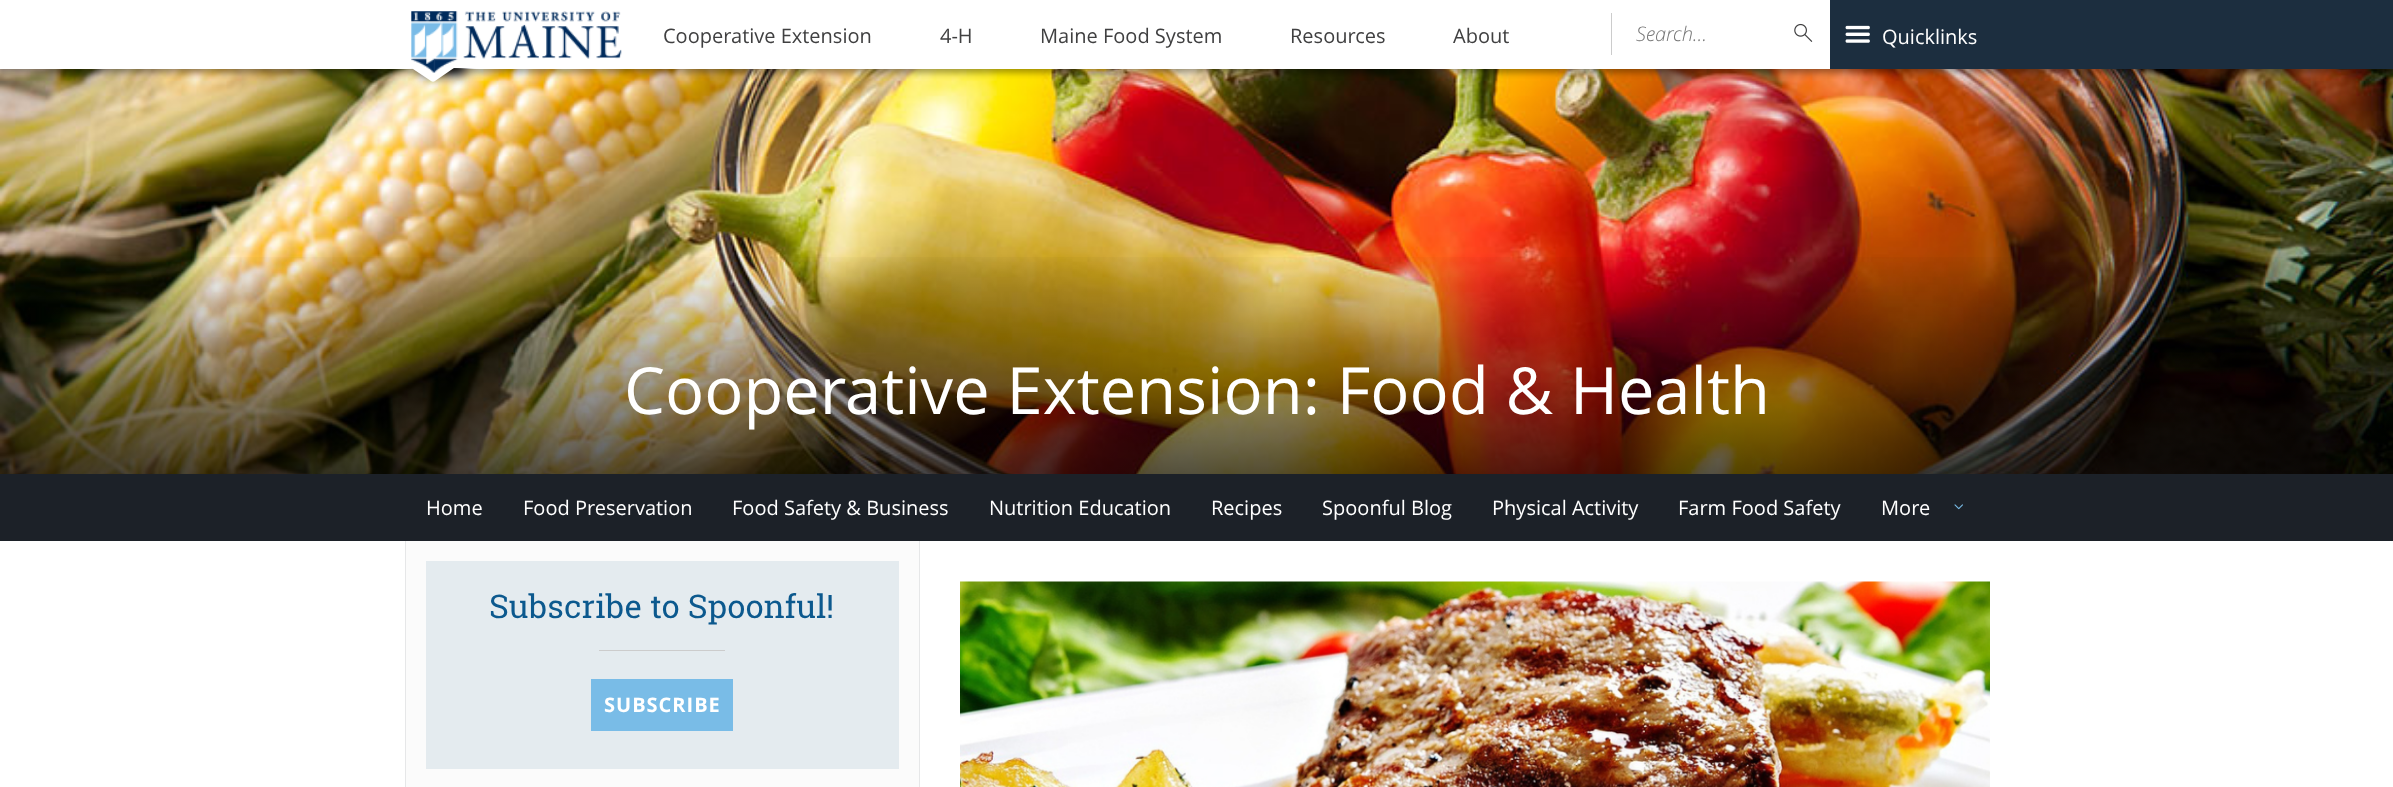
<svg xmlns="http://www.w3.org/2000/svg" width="2393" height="787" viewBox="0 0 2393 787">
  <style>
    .t1 { font: 20px Open Sans; fill: #404041; }
    .t2 { font: italic 300 20px Open Sans; fill: #757575; }
    .t3 { font: 20px Open Sans; fill: #fff; }
    .t4 { font: 65px Open Sans; fill: #fff; }
    .t5 { font: 32.5px Roboto Slab; fill: #0c598e; }
    .t6 { font: bold 20px Open Sans; letter-spacing: 1px; fill: #fff; }
  </style>
  <defs>
    <linearGradient id="g1" gradientUnits="userSpaceOnUse" x1="1197" y1="25" x2="1197" y2="474"><stop offset="0.5" stop-color="#000" stop-opacity="0"/><stop offset="1" stop-color="#000" stop-opacity="0.67"/></linearGradient>
  </defs>
  <rect width="100%" height="100%" fill="#fff"/>
  <image x="0" y="69" width="2393" height="405" href="images/4.png"/>
  <rect x="0" y="4" width="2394" height="69" fill="#00000059" filter="blur(3px)"/>
  <rect x="0" y="0" width="1830" height="69" fill="#fff"/>
  <rect x="421" y="50" width="44" height="25" rx="2.5" fill="#000" filter="blur(6px)"/>
  <path d="M413 66L445 44C446 43 448 43 449 44L467 56C468 57 468 58 467 59L435 81C434 82 432 82 431 81L413 69C412 68 412 67 413 66Z" fill="#fff"/>
  <rect x="407" y="36" width="72" height="32" fill="#fff"/>
  <image x="411" y="11" width="211" height="62" href="images/1.png"/>
  <text x="663" y="43" class="t1">Cooperative Extension</text>
  <text x="940" y="43" class="t1">4-H</text>
  <text x="1040" y="43" class="t1">Maine Food System</text>
  <text x="1290" y="43" class="t1">Resources</text>
  <text x="1453" y="43" class="t1">About</text>
  <rect x="1611" y="13" width="1" height="42" fill="#ccc"/>
  <text x="1636" y="41" class="t2">Search...</text>
  <image x="1794" y="23" width="19" height="19" href="images/2.png"/>
  <rect x="1830" y="0" width="563" height="69" fill="#1c2e3f"/>
  <image x="1845" y="25" width="25" height="18" href="images/3.png"/>
  <text x="1882" y="44" class="t3">Quicklinks</text>
  <rect x="0" y="474" width="2393" height="67" fill="#1c2128"/>
  <rect x="0" y="257" width="2393" height="217" fill="url(#g1)"/>
  <text x="624" y="414" class="t4">Cooperative Extension: Food &amp; Health</text>
  <text x="426" y="515" class="t3">Home</text>
  <text x="523" y="515" class="t3">Food Preservation</text>
  <text x="732" y="515" class="t3">Food Safety &amp; Business</text>
  <text x="989" y="515" class="t3">Nutrition Education</text>
  <text x="1211" y="515" class="t3">Recipes</text>
  <text x="1322" y="515" class="t3">Spoonful Blog</text>
  <text x="1492" y="515" class="t3">Physical Activity</text>
  <text x="1678" y="515" class="t3">Farm Food Safety</text>
  <text x="1881" y="515" class="t3">More</text>
  <image x="1954" y="504" width="9" height="6" href="images/5.png"/>
  <rect x="406" y="541" width="513" height="246" fill="#fbfbfb"/>
  <rect x="919" y="541" width="1" height="246" fill="#e6e7e8"/>
  <rect x="405" y="541" width="1" height="246" fill="#e6e7e8"/>
  <rect x="426" y="561" width="473" height="208" fill="#e4ebef"/>
  <text x="489" y="618" class="t5">Subscribe to Spoonful!</text>
  <rect x="599" y="650" width="126" height="1" fill="#ccc"/>
  <rect x="591" y="679" width="142" height="52" fill="#79bce7"/>
  <text x="604" y="712" class="t6">SUBSCRIBE</text>
  <image x="960" y="581" width="1030" height="206" href="images/6.png"/>
</svg>
